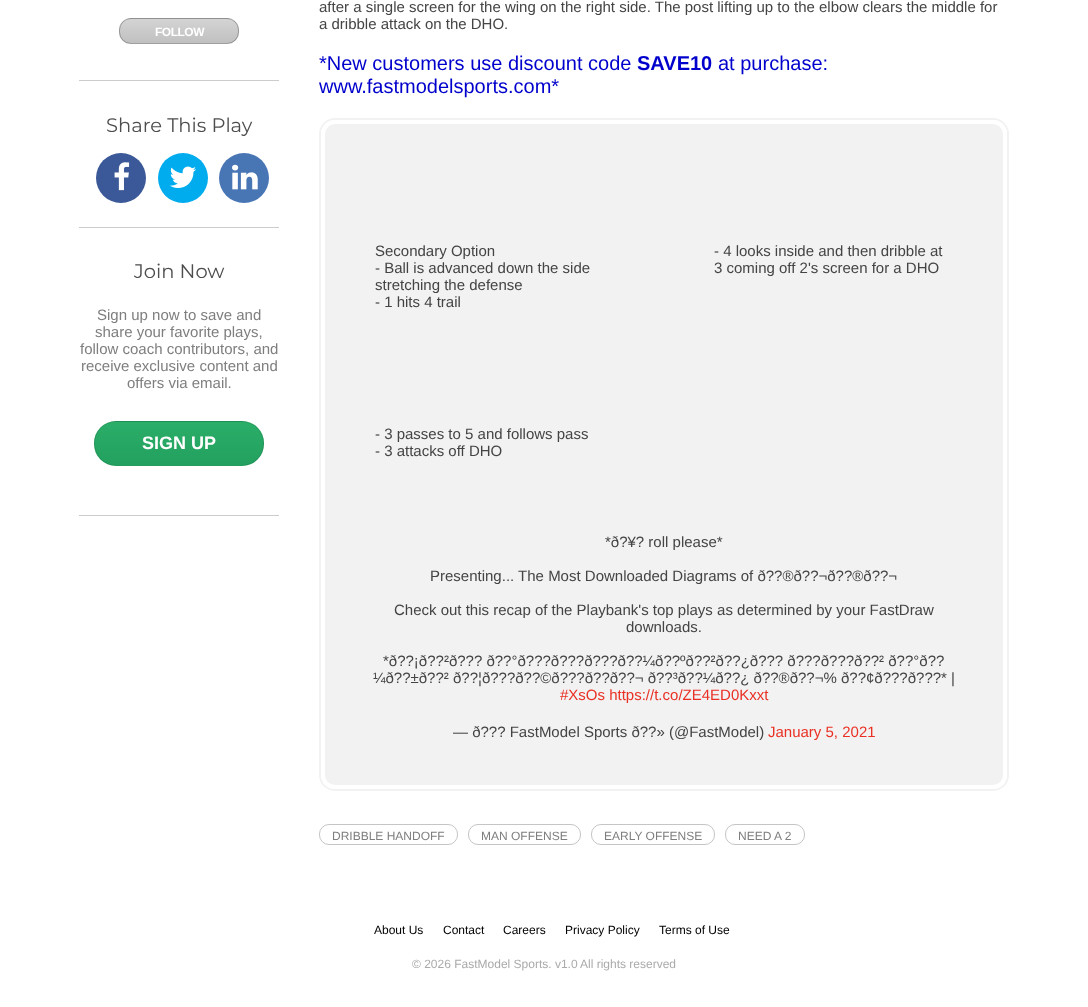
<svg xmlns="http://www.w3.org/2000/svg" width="1088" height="1007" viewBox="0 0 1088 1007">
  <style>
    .t1 { font: bold 12px Liberation Sans; letter-spacing: -0.5px; fill: #fff; }
    .t2 { font: 19.5px Montserrat; fill: #4d4d4d; }
    .t3 { font: 15px Liberation Sans; fill: #7e7e7e; }
    .t4 { font: bold 18px Liberation Sans; fill: #fff; }
    .t5 { font: 15px Liberation Sans; fill: #444; }
    .t6 { font: 20px Liberation Sans; fill: #0000cd; }
    .t7 { font: bold 20px Liberation Sans; fill: #0000cd; }
    .t8 { font: 15px Liberation Sans; fill: #ea3024; }
    .t9 { font: 12px Liberation Sans; fill: #7e7e7e; }
    .t10 { font: 12px Liberation Sans; fill: #000; }
    .t11 { font: 12px Liberation Sans; fill: #aaa; }
  </style>
  <defs>
    <clipPath id="clip1"><rect x="119" y="18" width="120" height="26" rx="12"/></clipPath>
    <linearGradient id="g1" gradientUnits="userSpaceOnUse" x1="179" y1="-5" x2="179" y2="19"><stop offset="0" stop-color="#d4d4d4"/><stop offset="1" stop-color="#c0c0c0"/></linearGradient>
    <linearGradient id="g2" gradientUnits="userSpaceOnUse" x1="179" y1="19" x2="179" y2="43"><stop offset="0" stop-color="#d4d4d4"/><stop offset="1" stop-color="#c0c0c0"/></linearGradient>
    <linearGradient id="g3" gradientUnits="userSpaceOnUse" x1="179" y1="43" x2="179" y2="67"><stop offset="0" stop-color="#d4d4d4"/><stop offset="1" stop-color="#c0c0c0"/></linearGradient>
    <clipPath id="clip2"><rect x="94" y="421" width="170" height="45" rx="22"/></clipPath>
    <linearGradient id="g4" gradientUnits="userSpaceOnUse" x1="179" y1="379" x2="179" y2="422"><stop offset="0" stop-color="#2aae68"/><stop offset="1" stop-color="#23a05f"/></linearGradient>
    <linearGradient id="g5" gradientUnits="userSpaceOnUse" x1="179" y1="422" x2="179" y2="465"><stop offset="0" stop-color="#2aae68"/><stop offset="1" stop-color="#23a05f"/></linearGradient>
    <linearGradient id="g6" gradientUnits="userSpaceOnUse" x1="179" y1="465" x2="179" y2="508"><stop offset="0" stop-color="#2aae68"/><stop offset="1" stop-color="#23a05f"/></linearGradient>
  </defs>
  <rect width="100%" height="100%" fill="#fff"/>
  <rect x="79" y="80" width="200" height="1" fill="#ccc"/>
  <g clip-path="url(#clip1)">
    <rect x="119" y="18" width="120" height="1" fill="url(#g1)"/>
    <rect x="119" y="19" width="120" height="24" fill="url(#g2)"/>
    <rect x="119" y="43" width="120" height="1" fill="url(#g3)"/>
  </g>
  <rect x="119.5" y="18.5" width="119" height="25" rx="11.5" fill="none" stroke="#00000040"/>
  <text x="155" y="36" class="t1">FOLLOW</text>
  <rect x="79" y="227" width="200" height="1" fill="#ccc"/>
  <text x="106" y="132" class="t2">Share This Play</text>
  <circle cx="121" cy="178" r="25" fill="#3b5998"/>
  <image x="114" y="162" width="16" height="29" href="images/1.png"/>
  <circle cx="183" cy="178" r="25" fill="#00aced"/>
  <image x="170" y="166" width="26" height="22" href="images/2.png"/>
  <circle cx="244" cy="178" r="25" fill="#4875b4"/>
  <image x="232" y="164" width="26" height="26" href="images/3.png"/>
  <rect x="79" y="515" width="200" height="1" fill="#ccc"/>
  <text x="134" y="278" class="t2">Join Now</text>
  <text x="97" y="320" class="t3">Sign up now to save and</text>
  <text x="95" y="337" class="t3">share your favorite plays,</text>
  <text x="80" y="354" class="t3">follow coach contributors, and</text>
  <text x="81" y="371" class="t3">receive exclusive content and</text>
  <text x="127" y="388" class="t3">offers via email.</text>
  <g clip-path="url(#clip2)">
    <rect x="109" y="421" width="140" height="1" fill="url(#g4)"/>
    <rect x="94" y="422" width="170" height="43" fill="url(#g5)"/>
    <rect x="109" y="465" width="140" height="1" fill="url(#g6)"/>
  </g>
  <rect x="94.5" y="421.5" width="169" height="44" rx="21.5" fill="none" stroke="#0000001a"/>
  <text x="142" y="449" class="t4">SIGN UP</text>
  <text x="319" y="12" class="t5">after a single screen for the wing on the right side. The post lifting up to the elbow clears the middle for</text>
  <text x="319" y="29" class="t5">a dribble attack on the DHO.</text>
  <text x="319" y="70" class="t6">*New customers use discount code</text>
  <text x="637" y="70" class="t7">SAVE10</text>
  <text x="718" y="70" class="t6">at purchase:</text>
  <text x="319" y="93" class="t6">www.fastmodelsports.com*</text>
  <rect x="320" y="119" width="688" height="671" rx="15" fill="none" stroke="#f2f2f2" stroke-width="2"/>
  <rect x="323" y="122" width="682" height="665" rx="12" fill="#f2f2f2" stroke="#fff" stroke-width="4"/>
  <text x="375" y="256" class="t5">Secondary Option</text>
  <text x="375" y="273" class="t5">- Ball is advanced down the side</text>
  <text x="375" y="290" class="t5">stretching the defense</text>
  <text x="375" y="307" class="t5">- 1 hits 4 trail</text>
  <text x="714" y="256" class="t5">- 4 looks inside and then dribble at</text>
  <text x="714" y="273" class="t5">3 coming off 2's screen for a DHO</text>
  <text x="375" y="439" class="t5">- 3 passes to 5 and follows pass</text>
  <text x="375" y="456" class="t5">- 3 attacks off DHO</text>
  <text x="605" y="547" class="t5">*ð?¥? roll please*</text>
  <text x="430" y="581" class="t5">Presenting... The Most Downloaded Diagrams of ð??®ð??¬ð??®ð??¬</text>
  <text x="394" y="615" class="t5">Check out this recap of the Playbank's top plays as determined by your FastDraw</text>
  <text x="626" y="632" class="t5">downloads.</text>
  <text x="383" y="666" class="t5">*ð??¡ð??²ð??? ð??°ð???ð???ð???ð??¼ð??ºð??²ð??¿ð??? ð???ð???ð??² ð??°ð??</text>
  <text x="373" y="683" class="t5">¼ð??±ð??² ð??¦ð???ð??©ð???ð??ð??¬ ð??³ð??¼ð??¿ ð??®ð??¬% ð??¢ð???ð???* |</text>
  <text x="560" y="700" class="t8">#XsOs https://t.co/ZE4ED0Kxxt</text>
  <text x="453" y="737" class="t5">— ð??? FastModel Sports ð??» (@FastModel)</text>
  <text x="768" y="737" class="t8">January 5, 2021</text>
  <rect x="319.5" y="824.5" width="138" height="20" rx="9.5" fill="none" stroke="#c5c5c5"/>
  <text x="332" y="840" class="t9">DRIBBLE HANDOFF</text>
  <rect x="468.5" y="824.5" width="112" height="20" rx="9.5" fill="none" stroke="#c5c5c5"/>
  <text x="481" y="840" class="t9">MAN OFFENSE</text>
  <rect x="591.5" y="824.5" width="123" height="20" rx="9.5" fill="none" stroke="#c5c5c5"/>
  <text x="604" y="840" class="t9">EARLY OFFENSE</text>
  <rect x="725.5" y="824.5" width="79" height="20" rx="9.5" fill="none" stroke="#c5c5c5"/>
  <text x="738" y="840" class="t9">NEED A 2</text>
  <text x="374" y="934" class="t10">About Us</text>
  <text x="443" y="934" class="t10">Contact</text>
  <text x="503" y="934" class="t10">Careers</text>
  <text x="565" y="934" class="t10">Privacy Policy</text>
  <text x="659" y="934" class="t10">Terms of Use</text>
  <text x="412" y="968" class="t11">© 2026 FastModel Sports. v1.0</text>
  <text x="580" y="968" class="t11">All rights reserved</text>
</svg>
